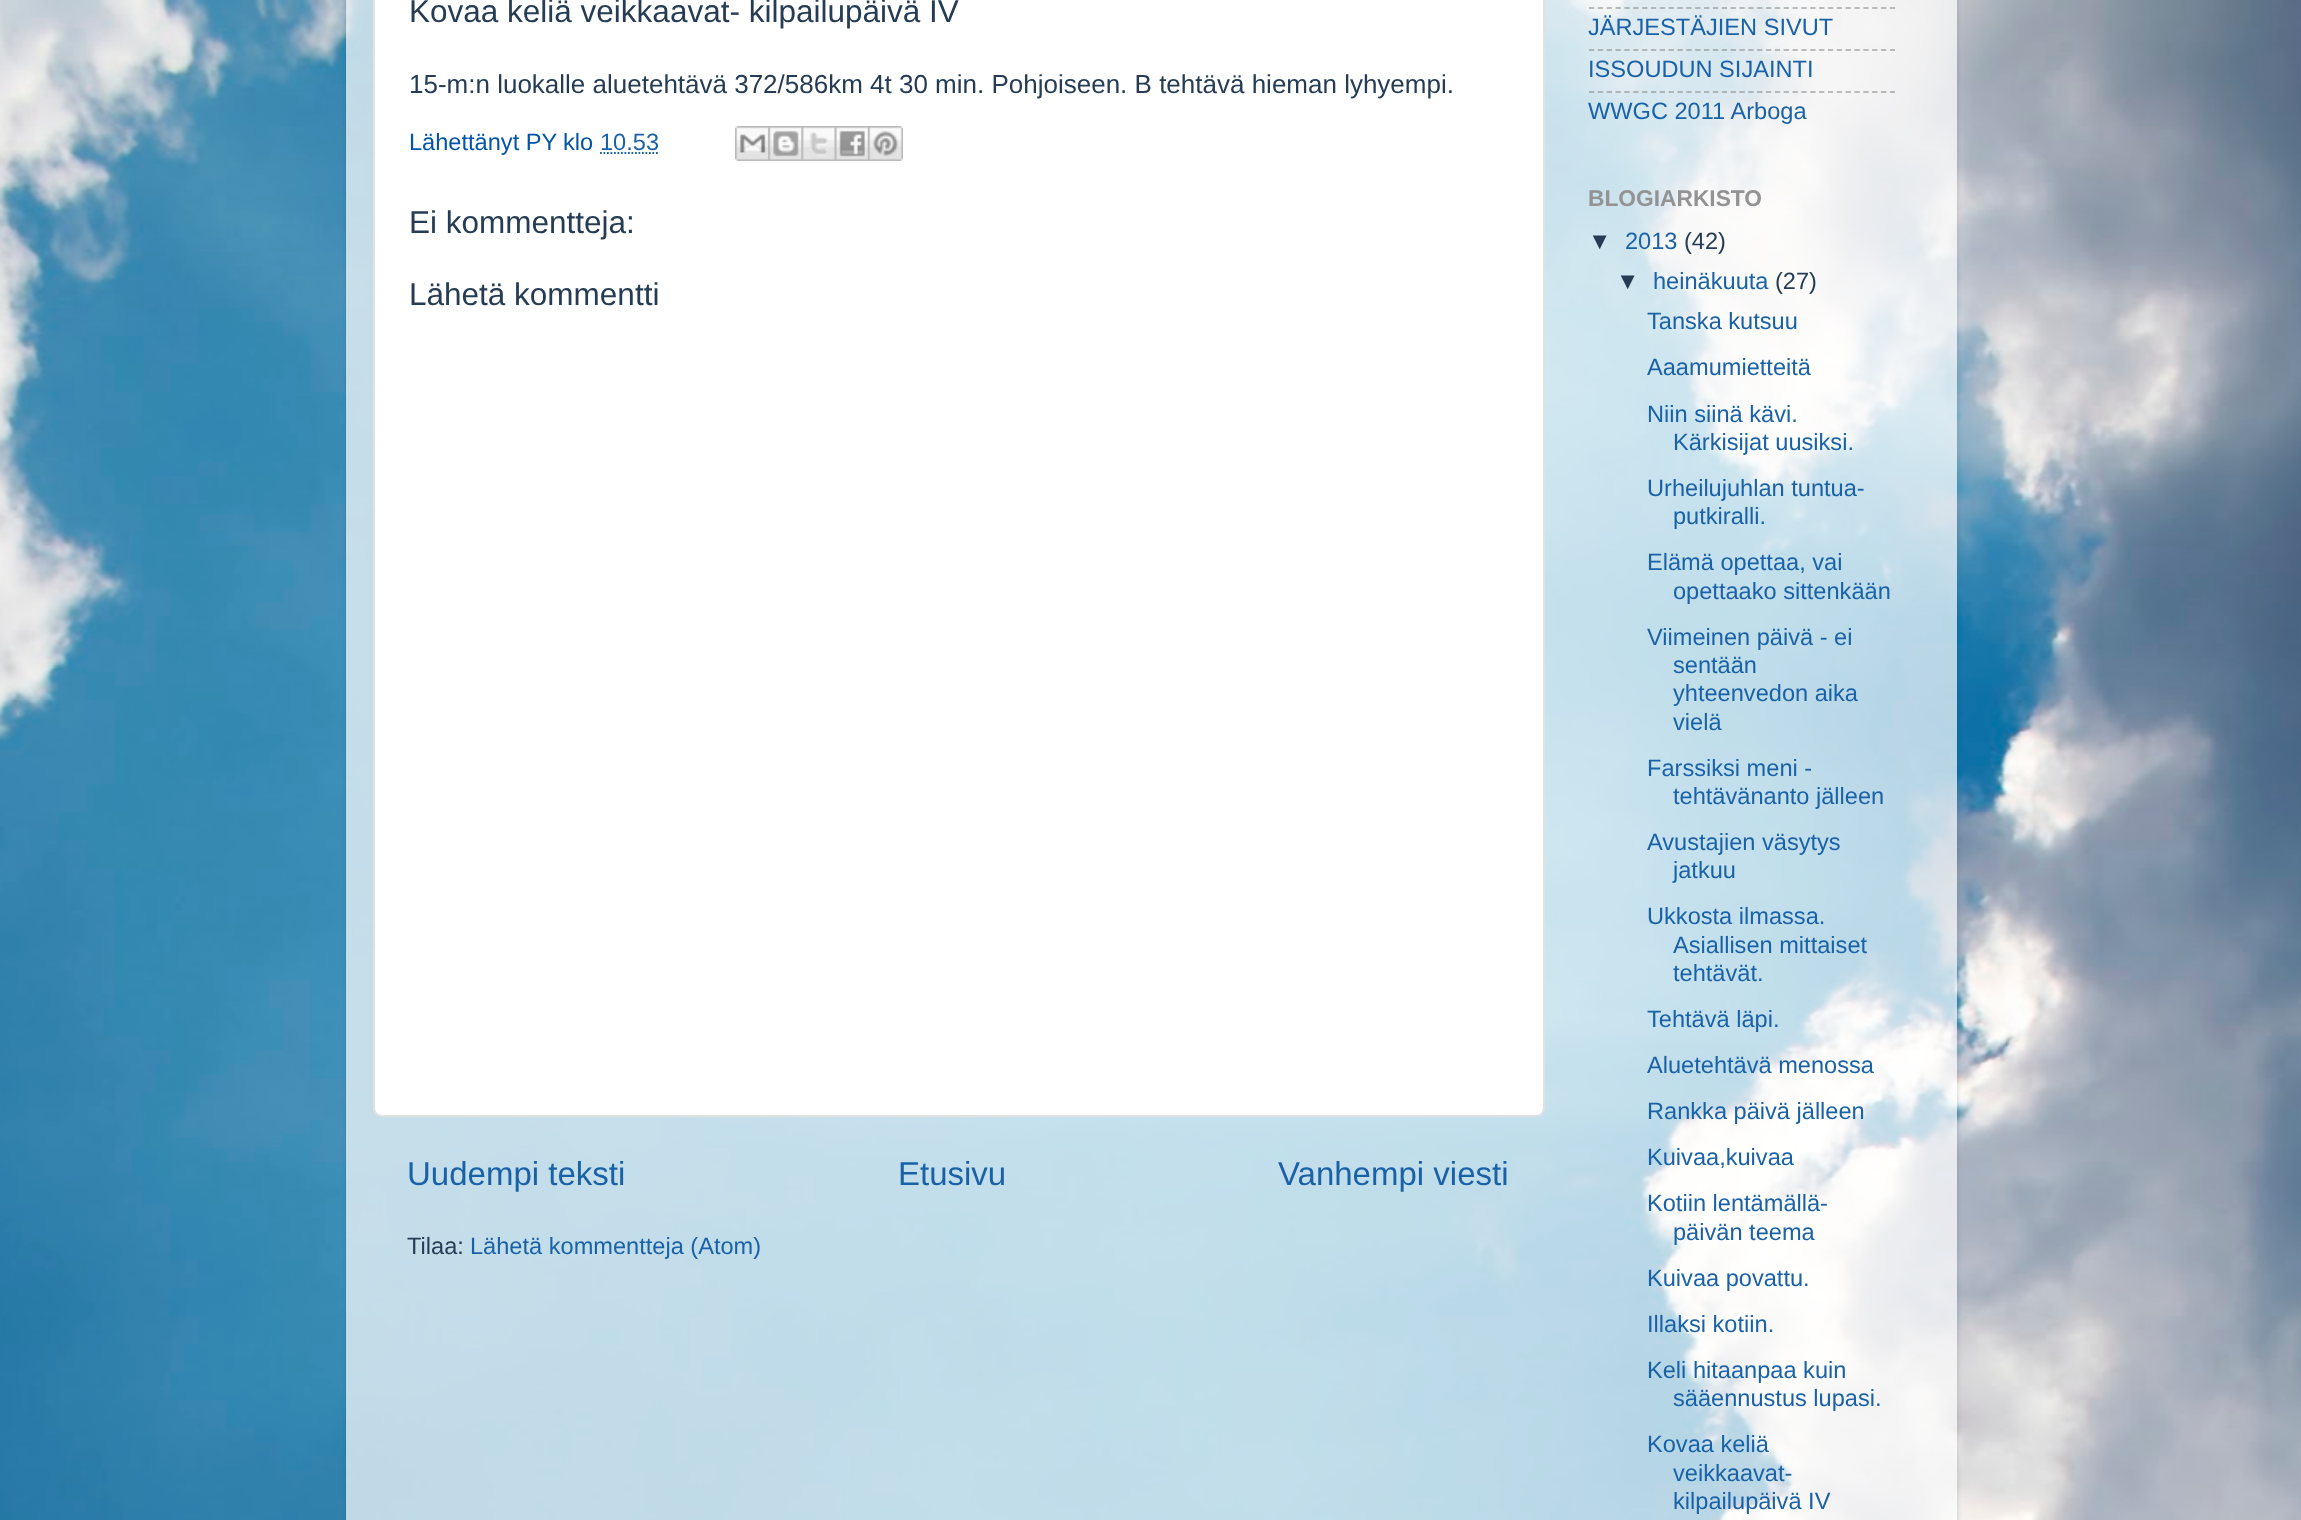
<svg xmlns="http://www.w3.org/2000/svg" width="2301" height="1520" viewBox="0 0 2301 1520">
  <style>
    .t1 { font: 31.5px Liberation Sans; fill: #253c54; }
    .t2 { font: 26px Liberation Sans; fill: #253c54; }
    .t3 { font: 23.6px Liberation Sans; fill: #0055a8; }
    .t4 { font: 23.6px Liberation Sans; fill: #1a62a8; }
    .t5 { font: 33px Liberation Sans; fill: #1a62a8; }
    .t6 { font: 23.6px Liberation Sans; fill: #253c54; }
    .t7 { font: bold 22.75px Liberation Sans; fill: #939393; }
  </style>
  <defs>
    <clipPath id="clip1"><path d="M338 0H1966V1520H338ZM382-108H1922C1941.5-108 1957-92.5 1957-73V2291H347V-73C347-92.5 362.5-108 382-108Z" clip-rule="evenodd"/></clipPath>
  </defs>
  <rect width="100%" height="100%" fill="#fff"/>
  <image x="0" y="0" width="2301" height="1520" href="images/1.png"/>
  <g clip-path="url(#clip1)">
    <rect x="347" y="-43" width="1610" height="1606" rx="35" fill="#00000026" filter="blur(2.5px)"/>
  </g>
  <rect x="346" y="0" width="1611" height="1520" fill="#ffffffb3"/>
  <rect x="374" y="-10" width="1170" height="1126" rx="8" fill="#fff" stroke="#e1e1e1" stroke-width="2"/>
  <text x="409" y="22" class="t1">Kovaa keliä veikkaavat- kilpailupäivä IV</text>
  <text x="409" y="93" class="t2">15-m:n luokalle aluetehtävä 372/586km 4t 30 min. Pohjoiseen. B tehtävä hieman lyhyempi.</text>
  <text x="409" y="150" class="t3">Lähettänyt PY</text>
  <text x="563" y="150" class="t3">klo</text>
  <text x="600" y="150" class="t4">10.53</text>
  <path d="M600 153H659" fill="none" stroke="#1a62a8" stroke-width="1.8" stroke-dasharray="1.75 1.75"/>
  <image x="735" y="126" width="34" height="35" href="images/2.png"/>
  <image x="768" y="126" width="34" height="35" href="images/3.png"/>
  <image x="801" y="126" width="34" height="35" href="images/4.png"/>
  <image x="834" y="126" width="34" height="35" href="images/5.png"/>
  <image x="868" y="126" width="35" height="35" href="images/6.png"/>
  <text x="409" y="233" class="t1">Ei kommentteja:</text>
  <text x="409" y="305" class="t1">Lähetä kommentti</text>
  <text x="407" y="1185" class="t5">Uudempi teksti</text>
  <text x="898" y="1185" class="t5">Etusivu</text>
  <text x="1278" y="1185" class="t5">Vanhempi viesti</text>
  <text x="407" y="1254" class="t6">Tilaa:</text>
  <text x="470" y="1254" class="t4">Lähetä kommentteja (Atom)</text>
  <path d="M1589 8H1895" fill="none" stroke="#80808080" stroke-width="1.8" stroke-dasharray="5.25 3.6"/>
  <text x="1588" y="35" class="t4">JÄRJESTÄJIEN SIVUT</text>
  <path d="M1589 50H1895" fill="none" stroke="#80808080" stroke-width="1.8" stroke-dasharray="5.25 3.6"/>
  <text x="1588" y="77" class="t4">ISSOUDUN SIJAINTI</text>
  <path d="M1589 92H1895" fill="none" stroke="#80808080" stroke-width="1.8" stroke-dasharray="5.25 3.6"/>
  <text x="1588" y="119" class="t4">WWGC 2011 Arboga</text>
  <text x="1588" y="206" class="t7">BLOGIARKISTO</text>
  <text x="1588" y="249" class="t6">▼</text>
  <text x="1625" y="249" class="t4">2013</text>
  <text x="1684" y="249" class="t6">(42)</text>
  <text x="1616" y="289" class="t6">▼</text>
  <text x="1653" y="289" class="t4">heinäkuuta</text>
  <text x="1775" y="289" class="t6">(27)</text>
  <text x="1647" y="329" class="t4">Tanska kutsuu</text>
  <text x="1647" y="375" class="t4">Aaamumietteitä</text>
  <text x="1647" y="422" class="t4">Niin siinä kävi.</text>
  <text x="1673" y="450" class="t4">Kärkisijat uusiksi.</text>
  <text x="1647" y="496" class="t4">Urheilujuhlan tuntua-</text>
  <text x="1673" y="524" class="t4">putkiralli.</text>
  <text x="1647" y="570" class="t4">Elämä opettaa, vai</text>
  <text x="1673" y="599" class="t4">opettaako sittenkään</text>
  <text x="1647" y="645" class="t4">Viimeinen päivä - ei</text>
  <text x="1673" y="673" class="t4">sentään</text>
  <text x="1673" y="701" class="t4">yhteenvedon aika</text>
  <text x="1673" y="730" class="t4">vielä</text>
  <text x="1647" y="776" class="t4">Farssiksi meni -</text>
  <text x="1673" y="804" class="t4">tehtävänanto jälleen</text>
  <text x="1647" y="850" class="t4">Avustajien väsytys</text>
  <text x="1673" y="878" class="t4">jatkuu</text>
  <text x="1647" y="924" class="t4">Ukkosta ilmassa.</text>
  <text x="1673" y="953" class="t4">Asiallisen mittaiset</text>
  <text x="1673" y="981" class="t4">tehtävät.</text>
  <text x="1647" y="1027" class="t4">Tehtävä läpi.</text>
  <text x="1647" y="1073" class="t4">Aluetehtävä menossa</text>
  <text x="1647" y="1119" class="t4">Rankka päivä jälleen</text>
  <text x="1647" y="1165" class="t4">Kuivaa,kuivaa</text>
  <text x="1647" y="1211" class="t4">Kotiin lentämällä-</text>
  <text x="1673" y="1240" class="t4">päivän teema</text>
  <text x="1647" y="1286" class="t4">Kuivaa povattu.</text>
  <text x="1647" y="1332" class="t4">Illaksi kotiin.</text>
  <text x="1647" y="1378" class="t4">Keli hitaanpaa kuin</text>
  <text x="1673" y="1406" class="t4">sääennustus lupasi.</text>
  <text x="1647" y="1452" class="t4">Kovaa keliä</text>
  <text x="1673" y="1481" class="t4">veikkaavat-</text>
  <text x="1673" y="1509" class="t4">kilpailupäivä IV</text>
</svg>
